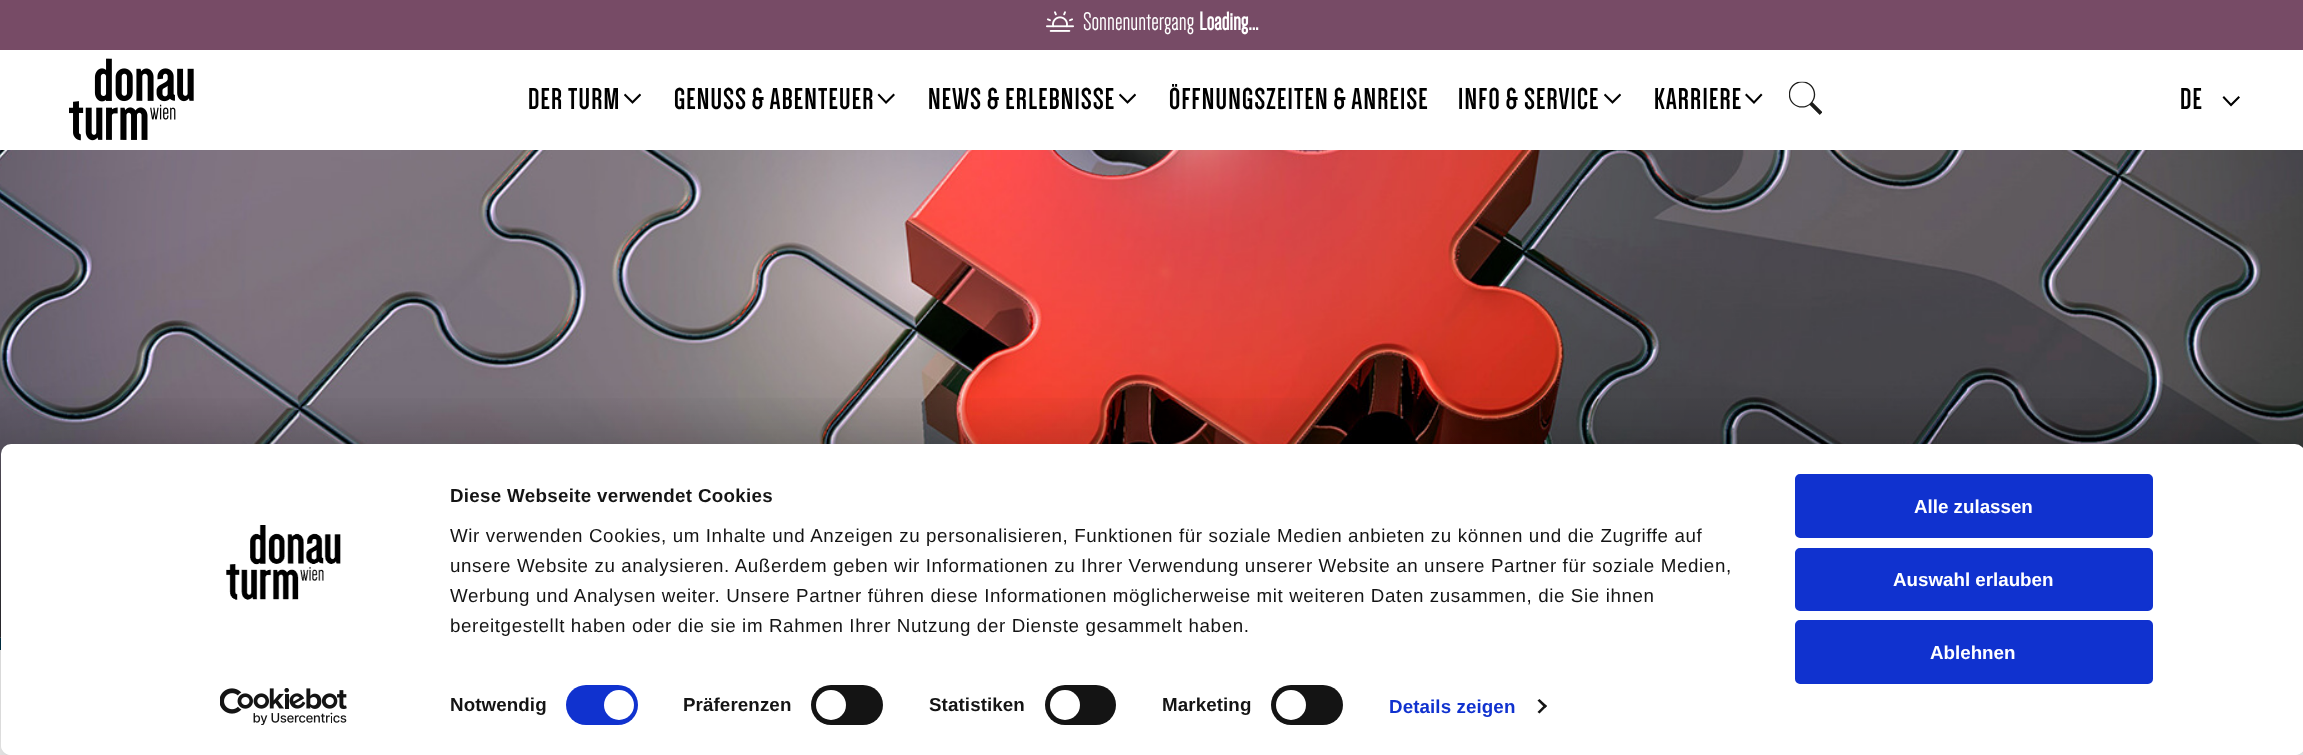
<svg xmlns="http://www.w3.org/2000/svg" width="2303" height="755" viewBox="0 0 2303 755">
  <style>
    .t1 { font: 26.25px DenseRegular; fill: #fff; }
    .t2 { font: bold 26.25px DenseRegular; fill: #fff; }
    .t3 { font: bold 31.25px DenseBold; letter-spacing: 1.25px; fill: #000; }
    .t4 { font: bold 18.75px Liberation Sans; letter-spacing: 0.3px; fill: #141414; }
    .t5 { font: 18.75px Liberation Sans; letter-spacing: 0.62px; fill: #141414; }
    .t6 { font: bold 18.75px Liberation Sans; letter-spacing: 0.1px; fill: #141414; }
    .t7 { font: bold 18.75px Liberation Sans; letter-spacing: 0.1px; fill: #1032cf; }
    .t8 { font: bold 18.75px Liberation Sans; fill: #fff; }
  </style>
  <defs>
    <linearGradient id="g1" gradientUnits="userSpaceOnUse" x1="1152" y1="387" x2="1152" y2="638"><stop offset="0" stop-color="#000" stop-opacity="0"/><stop offset="1" stop-color="#000" stop-opacity="0.49"/></linearGradient>
    <clipPath id="clip1"><path d="M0 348H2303V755H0ZM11 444H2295C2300.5 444 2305 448.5 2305 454V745C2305 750.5 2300.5 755 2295 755H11C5.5 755 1 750.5 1 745V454C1 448.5 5.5 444 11 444Z" clip-rule="evenodd"/></clipPath>
  </defs>
  <rect width="100%" height="100%" fill="#fff"/>
  <rect x="0" y="0" width="2303" height="50" fill="#774b66"/>
  <image x="1046" y="11" width="28" height="21" href="images/1.png"/>
  <text x="1083" y="30" class="t1">Sonnenuntergang</text>
  <text x="1199" y="30" class="t2">Loading...</text>
  <image x="69" y="58" width="125" height="83" href="images/2.png"/>
  <text x="528" y="109" class="t3">DER TURM</text>
  <image x="624" y="93" width="17" height="11" href="images/3.png"/>
  <text x="674" y="109" class="t3">GENUSS &amp; ABENTEUER</text>
  <path d="M886 101L879 93.5L877.5 95L886 104L895 95L893.5 93.5Z" fill="#000"/>
  <text x="928" y="109" class="t3">NEWS &amp; ERLEBNISSE</text>
  <image x="1119" y="93" width="17" height="11" href="images/3.png"/>
  <text x="1169" y="109" class="t3">ÖFFNUNGSZEITEN &amp; ANREISE</text>
  <text x="1458" y="109" class="t3">INFO &amp; SERVICE</text>
  <image x="1604" y="93" width="17" height="11" href="images/3.png"/>
  <text x="1654" y="109" class="t3">KARRIERE</text>
  <path d="M1754 101L1746.5 93.5L1745 95L1754 104L1762.5 95L1761 93.5Z" fill="#000"/>
  <image x="1789" y="81" width="33" height="34" href="images/4.png"/>
  <text x="2180" y="109" class="t3">DE</text>
  <path d="M2231 103.5L2224 96L2222.5 97.5L2231 106.5L2240 97.5L2238.5 96Z" fill="#000"/>
  <image x="0" y="150" width="2303" height="488" href="images/5.png"/>
  <rect x="0" y="398" width="2303" height="240" fill="url(#g1)"/>
  <rect x="0" y="638" width="1" height="12" fill="#01344a"/>
  <g clip-path="url(#clip1)">
    <rect x="1" y="481" width="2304" height="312" rx="10" fill="#0000004d" filter="blur(44px)"/>
  </g>
  <rect x="1" y="444" width="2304" height="311" rx="10" fill="#fff"/>
  <image x="226" y="525" width="115" height="75" href="images/6.png"/>
  <image x="220" y="688" width="127" height="37" href="images/7.png"/>
  <text x="450" y="502" class="t4">Diese Webseite verwendet Cookies</text>
  <text x="450" y="542" class="t5">Wir verwenden Cookies, um Inhalte und Anzeigen zu personalisieren, Funktionen für soziale Medien anbieten zu können und die Zugriffe auf</text>
  <text x="450" y="572" class="t5">unsere Website zu analysieren. Außerdem geben wir Informationen zu Ihrer Verwendung unserer Website an unsere Partner für soziale Medien,</text>
  <text x="450" y="602" class="t5">Werbung und Analysen weiter. Unsere Partner führen diese Informationen möglicherweise mit weiteren Daten zusammen, die Sie ihnen</text>
  <text x="450" y="632" class="t5">bereitgestellt haben oder die sie im Rahmen Ihrer Nutzung der Dienste gesammelt haben.</text>
  <text x="450" y="711" class="t6">Notwendig</text>
  <rect x="566" y="685" width="72" height="40" rx="20" fill="#1032cf"/>
  <circle cx="619" cy="705" r="15" fill="#fff"/>
  <text x="683" y="711" class="t6">Präferenzen</text>
  <rect x="811" y="685" width="72" height="40" rx="20" fill="#141414"/>
  <circle cx="831" cy="705" r="15" fill="#fff"/>
  <text x="929" y="711" class="t6">Statistiken</text>
  <rect x="1045" y="685" width="71" height="40" rx="20" fill="#141414"/>
  <circle cx="1065" cy="705" r="15" fill="#fff"/>
  <text x="1162" y="711" class="t6">Marketing</text>
  <rect x="1271" y="685" width="72" height="40" rx="20" fill="#141414"/>
  <circle cx="1291" cy="705" r="15" fill="#fff"/>
  <text x="1389" y="713" class="t7">Details zeigen</text>
  <path d="M1539.5 699L1547 706L1545 708L1537.5 700.5Z" fill="#141414"/>
  <path d="M1545 704.5L1547 706L1539.5 713.5L1537.5 712Z" fill="#141414"/>
  <rect x="1796.5" y="475.5" width="355" height="61" rx="3.5" fill="#1032cf" stroke="#1032cf" stroke-width="3"/>
  <text x="1914" y="513" class="t8">Alle zulassen</text>
  <rect x="1796.5" y="549.5" width="355" height="60" rx="3.5" fill="#1032cf" stroke="#1032cf" stroke-width="3"/>
  <text x="1893" y="586" class="t8">Auswahl erlauben</text>
  <rect x="1796.5" y="621.5" width="355" height="61" rx="3.5" fill="#1032cf" stroke="#1032cf" stroke-width="3"/>
  <text x="1930" y="659" class="t8">Ablehnen</text>
</svg>
